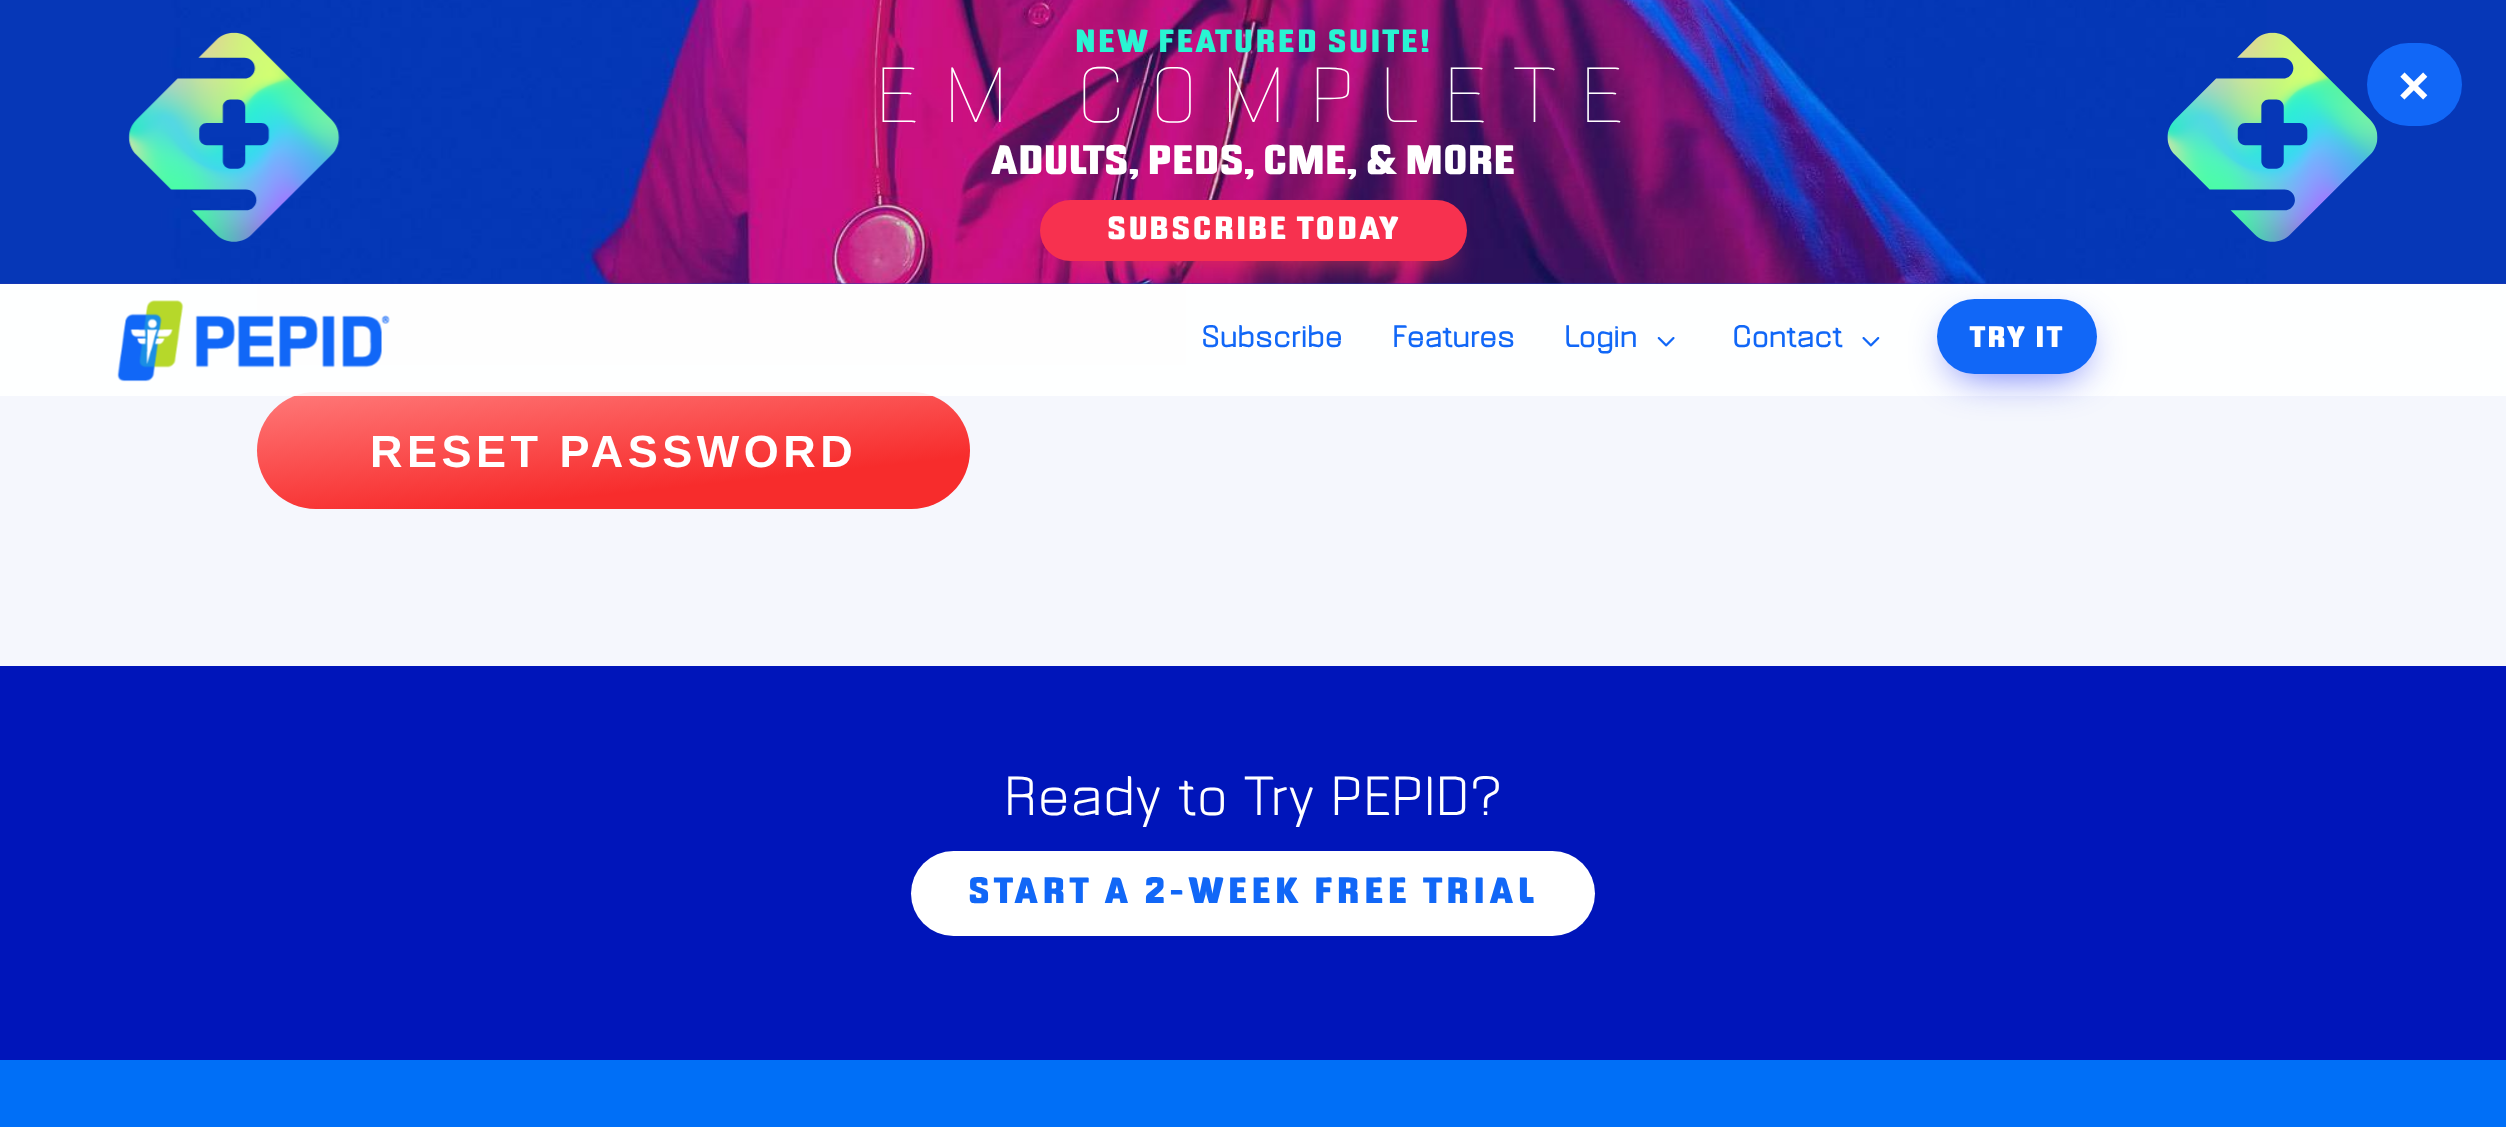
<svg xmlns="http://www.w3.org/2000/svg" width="2506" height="1127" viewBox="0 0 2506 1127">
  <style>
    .t1 { font: 900 31.5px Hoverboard; letter-spacing: 2.25px; fill: #29f4d2; }
    .t2 { font: 100 76.5px Hoverboard; letter-spacing: 29.25px; fill: #fff; }
    .t3 { font: 900 40.5px Hoverboard; fill: #fff; }
    .t4 { font: 900 31.5px Hoverboard; letter-spacing: 2.25px; fill: #fff; }
    .t5 { font: bold 54px Liberation Sans; letter-spacing: 2.25px; fill: #fff; }
    .t6 { font: bold 29.25px Hoverboard; fill: #1167f7; }
    .t7 { font: 900 29.25px Hoverboard; letter-spacing: 2.5px; fill: #fff; }
    .t8 { font: bold 45px Liberation Sans; letter-spacing: 4.5px; fill: #fff; }
    .t9 { font: 54px Hoverboard; fill: #fff; }
    .t10 { font: 900 36px Hoverboard; letter-spacing: 4.5px; fill: #1167f7; }
  </style>
  <defs>
    <linearGradient id="g1" gradientUnits="userSpaceOnUse" x1="603" y1="355" x2="623" y2="545"><stop offset="0" stop-color="#ff7a7a"/><stop offset="0.73" stop-color="#f72c2c"/></linearGradient>
    <clipPath id="clip1"><rect x="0" y="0" width="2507" height="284"/></clipPath>
  </defs>
  <rect width="100%" height="100%" fill="#f5f7fd"/>
  <rect x="257" y="284" width="929" height="81" fill="#eee"/>
  <rect x="257" y="392" width="713" height="117" rx="58.5" fill="url(#g1)"/>
  <rect x="0" y="284" width="2506" height="112" fill="#ffffffe6"/>
  <rect x="1951" y="326" width="133" height="48" rx="24" fill="#0e21f4a8" filter="blur(20px)"/>
  <rect x="0" y="283" width="2506" height="1" fill="#2238b5"/>
  <image x="0" y="0" width="2506" height="284" href="images/1.png"/>
  <image x="128" y="32" width="212" height="210" href="images/2.png"/>
  <text x="1075" y="52" class="t1">NEW FEATURED SUITE!</text>
  <text x="878" y="122" class="t2">EM COMPLETE</text>
  <text x="991" y="174" class="t3">ADULTS, PEDS, CME, &amp; MORE</text>
  <g clip-path="url(#clip1)">
    <rect x="1069" y="245" width="382" height="16" rx="8" fill="#f7314f" filter="blur(13.5px)"/>
  </g>
  <rect x="1040" y="200" width="427" height="61" rx="30.5" fill="#f7314f"/>
  <text x="1107" y="239" class="t4">SUBSCRIBE TODAY</text>
  <image x="2167" y="32" width="211" height="210" href="images/3.png"/>
  <rect x="2367" y="43" width="95" height="83" rx="41.5" fill="#1167f7"/>
  <text x="2398" y="104" class="t5">×</text>
  <image x="117" y="300" width="273" height="82" href="images/4.png"/>
  <text x="1201" y="347" class="t6">Subscribe</text>
  <text x="1392" y="347" class="t6">Features</text>
  <text x="1564" y="347" class="t6">Login</text>
  <image x="1657" y="337" width="18" height="10" href="images/5.png"/>
  <text x="1732" y="347" class="t6">Contact</text>
  <image x="1862" y="337" width="18" height="10" href="images/6.png"/>
  <rect x="1937" y="299" width="160" height="75" rx="37.5" fill="#1167f7"/>
  <text x="1970" y="347" class="t7">TRY IT</text>
  <text x="370" y="467" class="t8">RESET PASSWORD</text>
  <rect x="0" y="666" width="2506" height="394" fill="#0015ba"/>
  <text x="1004" y="815" class="t9">Ready to Try PEPID?</text>
  <rect x="911" y="851" width="684" height="85" rx="42.5" fill="#fff"/>
  <text x="968" y="903" class="t10">START A 2-WEEK FREE TRIAL</text>
  <rect x="0" y="1060" width="2506" height="67" fill="#006ff7"/>
</svg>
